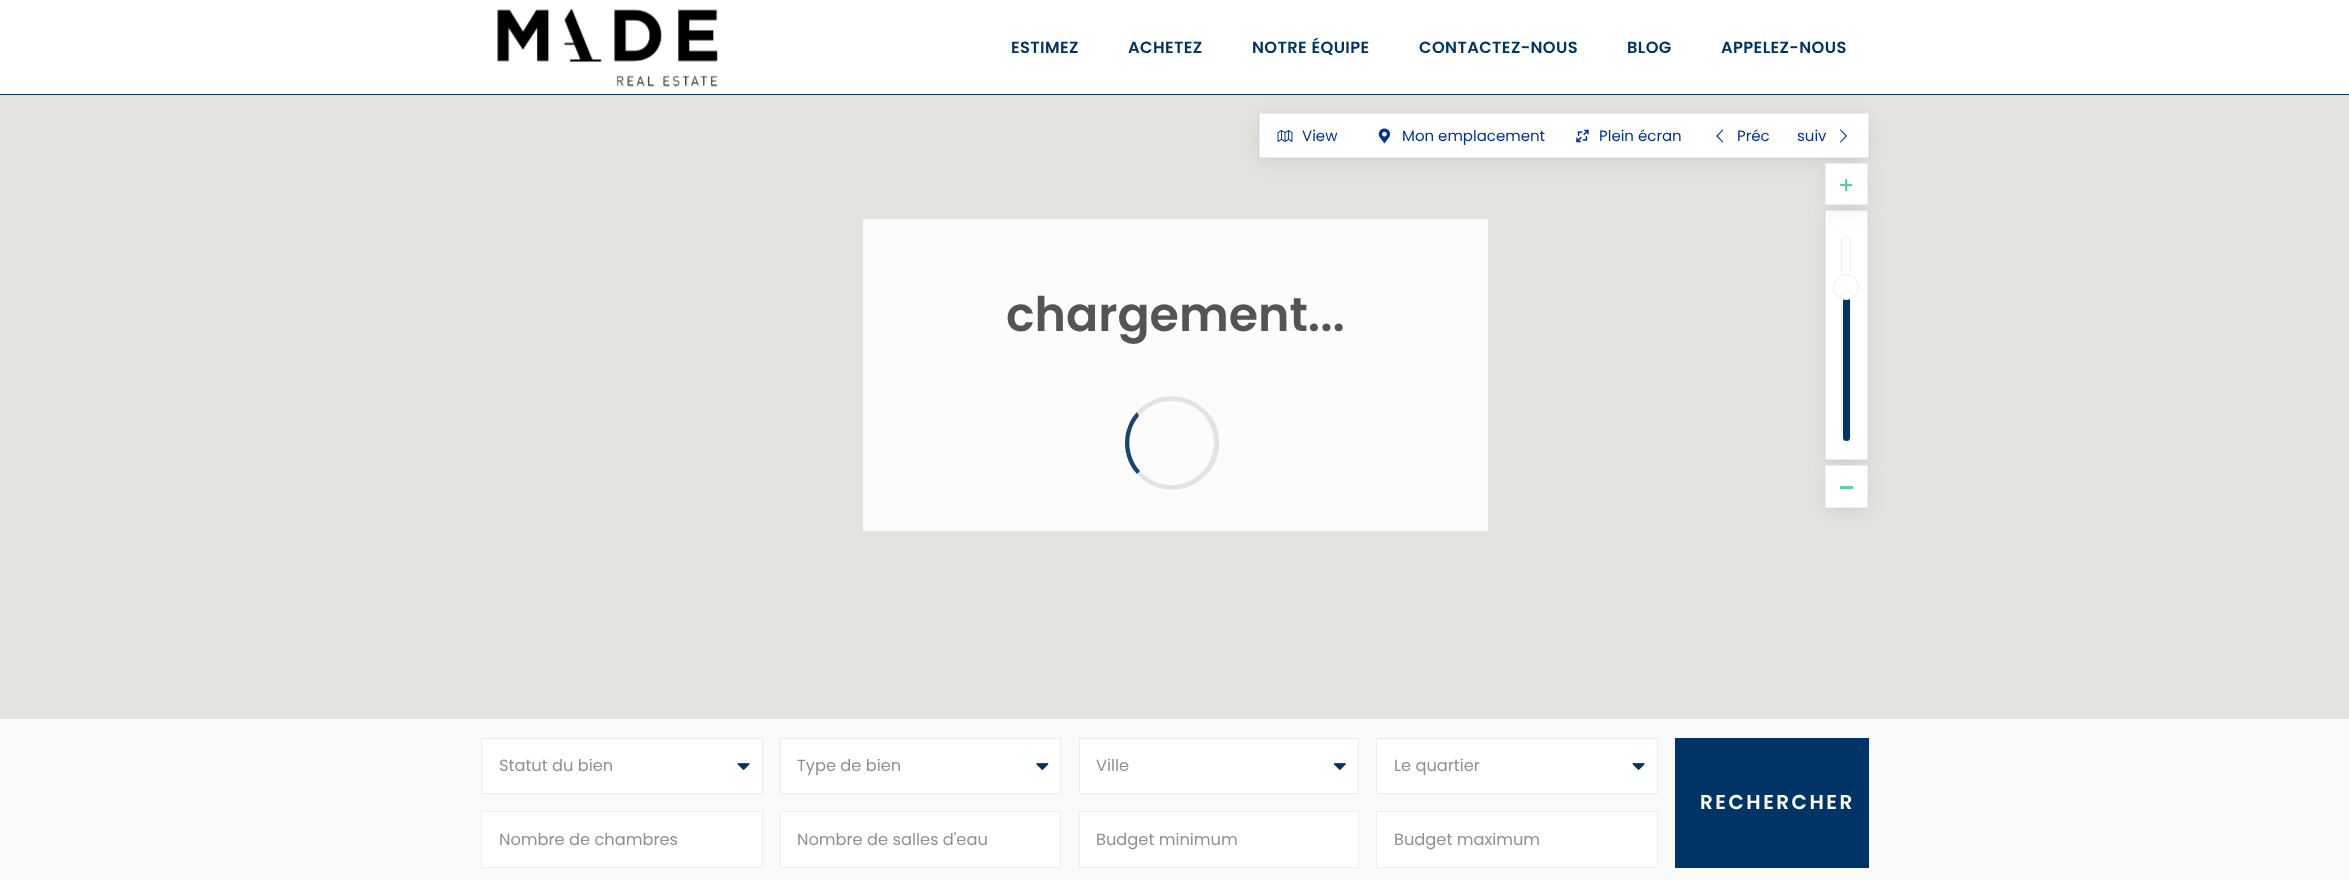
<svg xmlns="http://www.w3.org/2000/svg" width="2349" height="880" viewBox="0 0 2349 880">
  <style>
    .t1 { font: 600 16.25px Poppins; letter-spacing: 0.4px; fill: #036; }
    .t2 { font: 15px Poppins; fill: #039; }
    .t3 { font: 600 47.5px Poppins; fill: #545454; }
    .t4 { font: 16.25px Poppins; fill: #909090; }
    .t5 { font: 600 20px Poppins; letter-spacing: 2.5px; fill: #fff; }
  </style>
  <rect width="100%" height="100%" fill="#e5e3df"/>
  <rect x="1258.5" y="111.5" width="611" height="47" fill="none" stroke="#e0dedb"/>
  <rect x="1261" y="120" width="605" height="40" fill="#0000001a" filter="blur(10px)"/>
  <rect x="0" y="0" width="2349" height="94" fill="#fff"/>
  <rect x="0" y="94" width="2349" height="1" fill="#036"/>
  <image x="497" y="8" width="221" height="79" href="images/1.png"/>
  <text x="1011" y="53" class="t1">ESTIMEZ</text>
  <text x="1128" y="53" class="t1">ACHETEZ</text>
  <text x="1252" y="53" class="t1">NOTRE ÉQUIPE</text>
  <text x="1419" y="53" class="t1">CONTACTEZ-NOUS</text>
  <text x="1627" y="53" class="t1">BLOG</text>
  <text x="1721" y="53" class="t1">APPELEZ-NOUS</text>
  <rect x="1259.5" y="113.5" width="609" height="44" fill="#fff" stroke="#ededed"/>
  <image x="1277" y="130" width="16" height="12" href="images/2.png"/>
  <text x="1302" y="141" class="t2">View</text>
  <image x="1378" y="128" width="13" height="16" href="images/3.png"/>
  <text x="1402" y="141" class="t2">Mon emplacement</text>
  <image x="1576" y="129" width="13" height="14" href="images/4.png"/>
  <text x="1599" y="141" class="t2">Plein écran</text>
  <image x="1716" y="129" width="8" height="14" href="images/5.png"/>
  <text x="1737" y="141" class="t2">Préc</text>
  <text x="1797" y="141" class="t2">suiv</text>
  <image x="1840" y="129" width="7" height="14" href="images/6.png"/>
  <rect x="1824.5" y="209.5" width="44" height="251" fill="none" stroke="#e0dedb"/>
  <rect x="1828" y="218" width="37" height="245" fill="#0000001a" filter="blur(10px)"/>
  <rect x="1825.5" y="210.5" width="42" height="249" fill="#fff" stroke="#ededed"/>
  <rect x="1841.5" y="236.5" width="9" height="206" rx="4.5" fill="none" stroke="#f0f0f0"/>
  <rect x="1828" y="170" width="37" height="38" fill="#0000001a" filter="blur(10px)"/>
  <rect x="1825.5" y="163.5" width="42" height="41" fill="#fff" stroke="#ededed"/>
  <image x="1840" y="178" width="13" height="14" href="images/7.png"/>
  <rect x="1843" y="291" width="7" height="150" rx="3.5" fill="#036"/>
  <circle cx="1846" cy="287" r="12.5" fill="#fff" stroke="#ededed"/>
  <rect x="1828" y="473" width="37" height="37" fill="#0000001a" filter="blur(10px)"/>
  <rect x="1825.5" y="465.5" width="42" height="42" fill="#fff" stroke="#ededed"/>
  <rect x="1840" y="486" width="13" height="3" fill="#61d09b"/>
  <rect x="863" y="219" width="625" height="312" fill="#fcfcfc"/>
  <text x="1006" y="331" class="t3">chargement...</text>
  <path d="M1172 401C1159 401 1147 407 1139 416L1137 412C1154 392 1186 391 1205 410L1202 413C1194 406 1184 401 1172 401Z" fill="#e3e3e3"/>
  <path d="M1219 448C1218 459 1213 469 1205 476L1201 473C1218 457 1218 430 1202 413L1205 410C1213 417 1218 427 1219 438Z" fill="#e3e3e3"/>
  <path d="M1205 476C1186 495 1155 494 1137 474L1140 471C1156 489 1184 490 1201 473Z" fill="#e3e3e3"/>
  <path d="M1137 474C1121 457 1121 429 1137 412L1139 416C1126 431 1126 455 1140 471Z" fill="#174572"/>
  <rect x="0" y="719" width="2349" height="161" fill="#fafafa"/>
  <rect x="481.5" y="738.5" width="281" height="55" fill="#fff" stroke="#ebebeb"/>
  <text x="499" y="771" class="t4">Statut du bien</text>
  <image x="737" y="763" width="13" height="7" href="images/8.png"/>
  <rect x="780.5" y="738.5" width="280" height="55" fill="#fff" stroke="#ebebeb"/>
  <text x="797" y="771" class="t4">Type de bien</text>
  <image x="1036" y="763" width="13" height="7" href="images/9.png"/>
  <rect x="1079.5" y="738.5" width="279" height="55" fill="#fff" stroke="#ebebeb"/>
  <text x="1096" y="771" class="t4">Ville</text>
  <image x="1333" y="763" width="13" height="7" href="images/10.png"/>
  <rect x="1376.5" y="738.5" width="281" height="55" fill="#fff" stroke="#ebebeb"/>
  <text x="1394" y="771" class="t4">Le quartier</text>
  <image x="1632" y="763" width="13" height="7" href="images/8.png"/>
  <rect x="481.5" y="811.5" width="281" height="56" fill="#fff" stroke="#ededed"/>
  <text x="499" y="845" class="t4">Nombre de chambres</text>
  <rect x="780.5" y="811.5" width="280" height="56" fill="#fff" stroke="#ededed"/>
  <text x="797" y="845" class="t4">Nombre de salles d'eau</text>
  <rect x="1079.5" y="811.5" width="279" height="56" fill="#fff" stroke="#ededed"/>
  <text x="1096" y="845" class="t4">Budget minimum</text>
  <rect x="1376.5" y="811.5" width="281" height="56" fill="#fff" stroke="#ededed"/>
  <text x="1394" y="845" class="t4">Budget maximum</text>
  <rect x="1675" y="738" width="194" height="130" fill="#036"/>
  <text x="1700" y="809" class="t5">RECHERCHER</text>
</svg>
